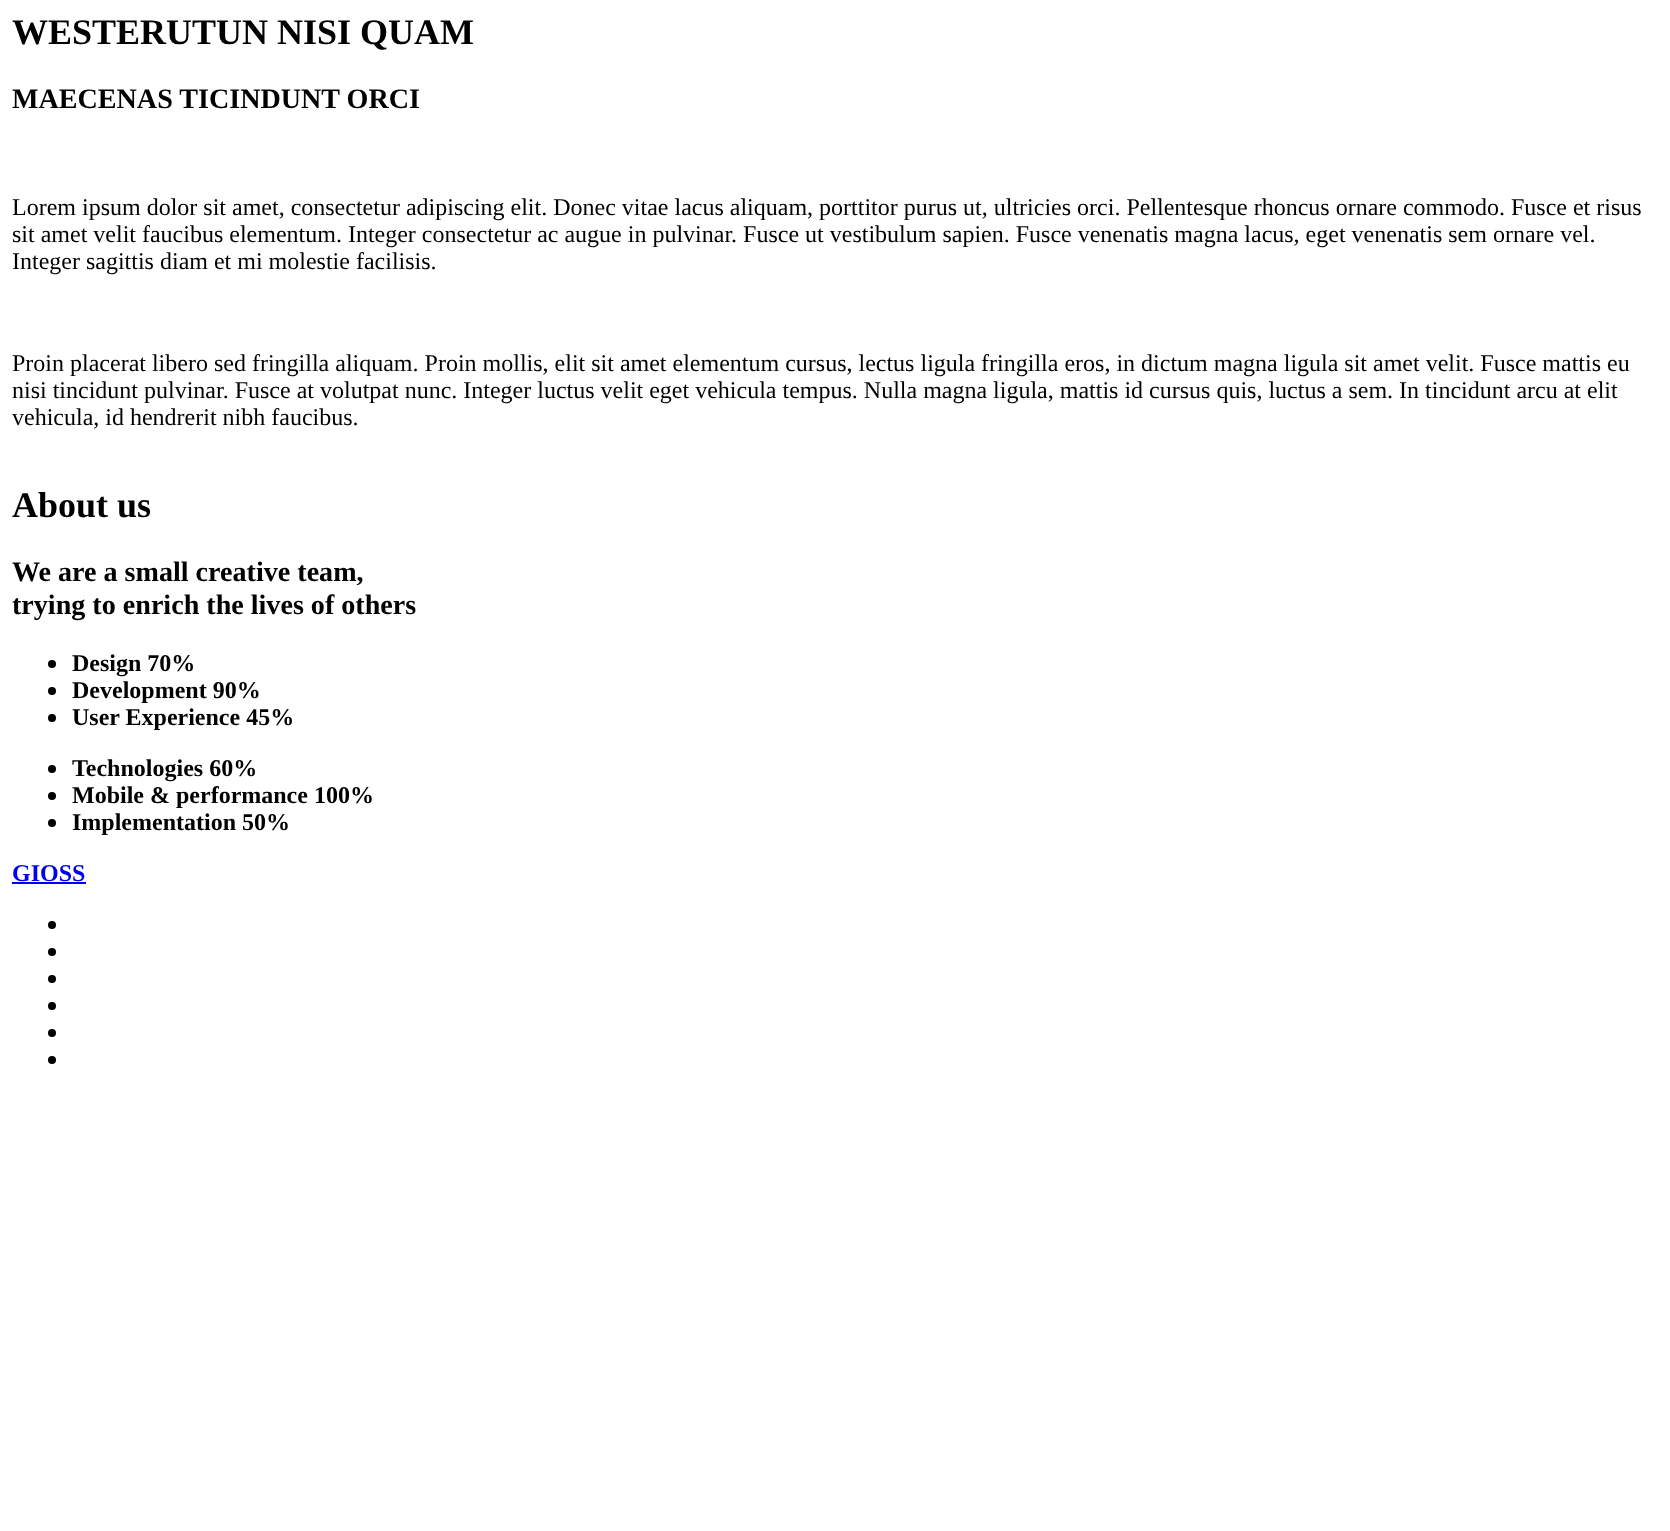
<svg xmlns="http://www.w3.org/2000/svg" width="1670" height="1531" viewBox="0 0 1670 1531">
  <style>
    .t1 { font: bold 36px Liberation Serif; fill: #000; }
    .t2 { font: bold 28.1px Liberation Serif; fill: #000; }
    .t3 { font: 24px Liberation Serif; fill: #000; }
    .t4 { font: bold 24px Liberation Serif; fill: #000; }
    .t5 { font: bold 24px Liberation Serif; fill: #00e; }
  </style>
  <rect width="100%" height="100%" fill="#fff"/>
  <text x="12" y="44" class="t1">WESTERUTUN NISI QUAM</text>
  <text x="12" y="108" class="t2">MAECENAS TICINDUNT ORCI</text>
  <text x="12" y="215" class="t3">Lorem ipsum dolor sit amet, consectetur adipiscing elit. Donec vitae lacus aliquam, porttitor purus ut, ultricies orci. Pellentesque rhoncus ornare commodo. Fusce et risus</text>
  <text x="12" y="242" class="t3">sit amet velit faucibus elementum. Integer consectetur ac augue in pulvinar. Fusce ut vestibulum sapien. Fusce venenatis magna lacus, eget venenatis sem ornare vel.</text>
  <text x="12" y="269" class="t3">Integer sagittis diam et mi molestie facilisis.</text>
  <text x="12" y="371" class="t3">Proin placerat libero sed fringilla aliquam. Proin mollis, elit sit amet elementum cursus, lectus ligula fringilla eros, in dictum magna ligula sit amet velit. Fusce mattis eu</text>
  <text x="12" y="398" class="t3">nisi tincidunt pulvinar. Fusce at volutpat nunc. Integer luctus velit eget vehicula tempus. Nulla magna ligula, mattis id cursus quis, luctus a sem. In tincidunt arcu at elit</text>
  <text x="12" y="425" class="t3">vehicula, id hendrerit nibh faucibus.</text>
  <text x="12" y="517" class="t1">About us</text>
  <text x="12" y="581" class="t2">We are a small creative team,</text>
  <text x="12" y="614" class="t2">trying to enrich the lives of others</text>
  <circle cx="52" cy="664" r="4" fill="#000"/>
  <text x="72" y="671" class="t4">Design 70%</text>
  <circle cx="52" cy="691" r="4" fill="#000"/>
  <text x="72" y="698" class="t4">Development 90%</text>
  <circle cx="52" cy="718" r="4" fill="#000"/>
  <text x="72" y="725" class="t4">User Experience 45%</text>
  <circle cx="52" cy="769" r="4" fill="#000"/>
  <text x="72" y="776" class="t4">Technologies 60%</text>
  <circle cx="52" cy="796" r="4" fill="#000"/>
  <text x="72" y="803" class="t4">Mobile &amp; performance 100%</text>
  <circle cx="52" cy="823" r="4" fill="#000"/>
  <text x="72" y="830" class="t4">Implementation 50%</text>
  <text x="12" y="881" class="t5">GIOSS</text>
  <rect x="12" y="882" width="74" height="2" fill="#00e"/>
  <circle cx="52" cy="925" r="4" fill="#000"/>
  <circle cx="52" cy="952" r="4" fill="#000"/>
  <circle cx="52" cy="979" r="4" fill="#000"/>
  <circle cx="52" cy="1006" r="4" fill="#000"/>
  <circle cx="52" cy="1033" r="4" fill="#000"/>
  <circle cx="52" cy="1060" r="4" fill="#000"/>
</svg>
